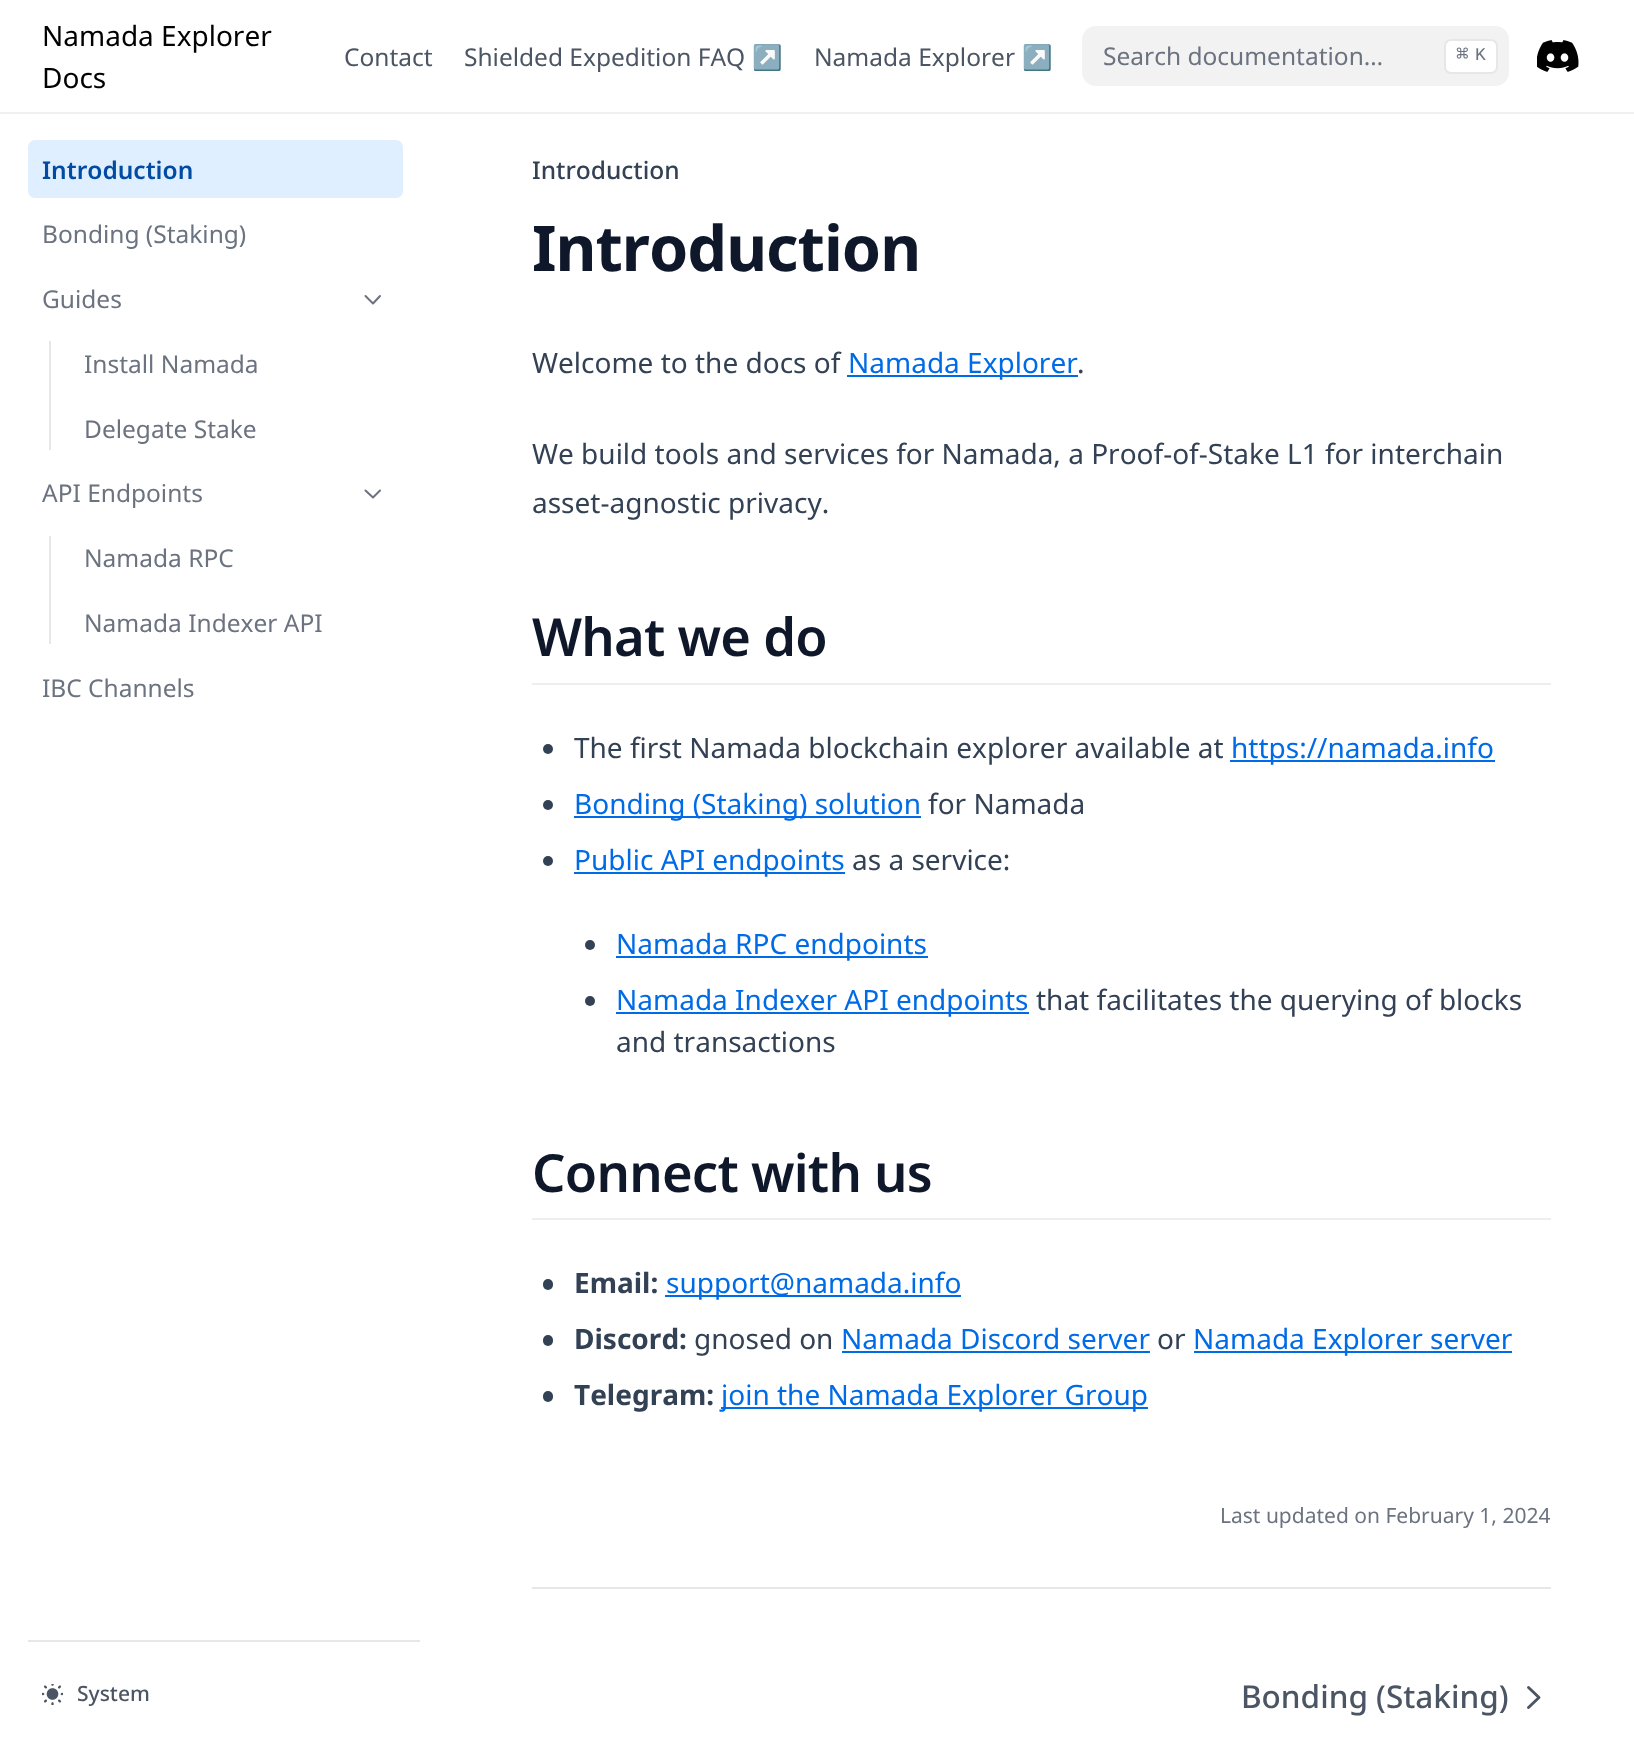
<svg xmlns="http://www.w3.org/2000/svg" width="1634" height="1746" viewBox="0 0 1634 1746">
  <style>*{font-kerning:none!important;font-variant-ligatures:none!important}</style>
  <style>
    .t1 { font: 28px Noto Sans; fill: #000; }
    .t2 { font: 24.5px Noto Sans; fill: #4b5563; }
    .t3 { font: 24.5px Noto Color Emoji; fill: #4b5563; }
    .t4 { font: 24.5px Noto Sans; fill: #6b7280; }
    .t5 { font: 21px DejaVu Sans Mono; fill: #6b7280; }
    .t6 { font: 18px Liberation Mono; fill: #6b7280; }
    .t7 { font: 600 24.5px Noto Sans; fill: #004ca3; }
    .t8 { font: 500 21px Noto Sans; fill: #4b5563; }
    .t9 { font: 500 24.5px Noto Sans; fill: #334155; }
    .t10 { font: bold 63px Noto Sans; letter-spacing: -1px; fill: #0f172a; }
    .t11 { font: 28px Noto Sans; fill: #334155; }
    .t12 { font: 28px Noto Sans; fill: #006be6; }
    .t13 { font: 600 52.5px Noto Sans; letter-spacing: -0.75px; fill: #0f172a; }
    .t14 { font: bold 28px Noto Sans; fill: #334155; }
    .t15 { font: 21px Noto Sans; fill: #6b7280; }
    .t16 { font: 500 31.5px Noto Sans; fill: #4b5563; }
  </style>
  <rect width="100%" height="100%" fill="#fff"/>
  <text x="42" y="46" class="t1">Namada Explorer</text>
  <text x="42" y="88" class="t1">Docs</text>
  <text x="344" y="66" class="t2">Contact</text>
  <text x="464" y="66" class="t2">Shielded Expedition FAQ</text>
  <text x="752" y="66" class="t3">↗</text>
  <text x="814" y="66" class="t2">Namada Explorer</text>
  <text x="1022" y="66" class="t3">↗</text>
  <rect x="1082" y="26" width="427" height="60" rx="14" fill="#f2f2f2"/>
  <text x="1103" y="65" class="t4">Search documentation…</text>
  <rect x="1445" y="40" width="52" height="33" rx="6" fill="#fff" stroke="#e5e7eb" stroke-width="2"/>
  <text x="1456" y="61" class="t5">⌘</text>
  <text x="1475" y="60" class="t6">K</text>
  <image x="1537" y="40" width="42" height="32" href="images/1.png"/>
  <path d="M0 112V114H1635V2H1634V112Z" fill="#f0f0f0"/>
  <rect x="28" y="140" width="375" height="58" rx="7" fill="#e0efff"/>
  <text x="42" y="179" class="t7">Introduction</text>
  <text x="42" y="243" class="t4">Bonding (Staking)</text>
  <text x="42" y="308" class="t4">Guides</text>
  <path d="M380 296L373 303.5L365.5 296" fill="none" stroke="#6b7280" stroke-width="2" stroke-linecap="round" stroke-linejoin="round"/>
  <rect x="49" y="341" width="2" height="109" fill="#e5e7eb"/>
  <text x="84" y="373" class="t4">Install Namada</text>
  <text x="84" y="438" class="t4">Delegate Stake</text>
  <text x="42" y="502" class="t4">API Endpoints</text>
  <path d="M380 490.5L373 497.5L365.5 490.5" fill="none" stroke="#6b7280" stroke-width="2" stroke-linecap="round" stroke-linejoin="round"/>
  <rect x="49" y="536" width="2" height="108" fill="#e5e7eb"/>
  <text x="84" y="567" class="t4">Namada RPC</text>
  <text x="84" y="632" class="t4">Namada Indexer API</text>
  <text x="42" y="697" class="t4">IBC Channels</text>
  <rect x="28" y="1640" width="392" height="2" fill="#e5e7eb"/>
  <image x="42" y="1684" width="21" height="21" href="images/2.png"/>
  <text x="77" y="1701" class="t8">System</text>
  <text x="532" y="179" class="t9">Introduction</text>
  <text x="532" y="271" class="t10">Introduction</text>
  <text x="532" y="373" class="t11">Welcome to the docs of</text>
  <rect x="847" y="375" width="231" height="2" fill="#006be6"/>
  <text x="848" y="373" class="t12">Namada Explorer</text>
  <text x="1077" y="373" class="t11">.</text>
  <text x="532" y="464" class="t11">We build tools and services for Namada, a Proof-of-Stake L1 for interchain</text>
  <text x="532" y="513" class="t11">asset-agnostic privacy.</text>
  <rect x="532" y="683" width="1019" height="2" fill="#eee"/>
  <text x="532" y="656" class="t13">What we do</text>
  <circle cx="548" cy="749" r="5" fill="#334155"/>
  <text x="574" y="758" class="t11">The first Namada blockchain explorer available at</text>
  <rect x="1230" y="760" width="265" height="2" fill="#006be6"/>
  <text x="1231" y="758" class="t12">https://namada.info</text>
  <circle cx="548" cy="805" r="5" fill="#334155"/>
  <rect x="574" y="816" width="347" height="2" fill="#006be6"/>
  <text x="574" y="814" class="t12">Bonding (Staking) solution</text>
  <text x="928" y="814" class="t11">for Namada</text>
  <circle cx="548" cy="861" r="5" fill="#334155"/>
  <rect x="574" y="872" width="271" height="2" fill="#006be6"/>
  <text x="574" y="870" class="t12">Public API endpoints</text>
  <text x="852" y="870" class="t11">as a service:</text>
  <circle cx="590" cy="945" r="5" fill="#334155"/>
  <rect x="616" y="956" width="312" height="2" fill="#006be6"/>
  <text x="616" y="954" class="t12">Namada RPC endpoints</text>
  <circle cx="590" cy="1001" r="5" fill="#334155"/>
  <rect x="616" y="1012" width="413" height="2" fill="#006be6"/>
  <text x="616" y="1010" class="t12">Namada Indexer API endpoints</text>
  <text x="1036" y="1010" class="t11">that facilitates the querying of blocks</text>
  <text x="616" y="1052" class="t11">and transactions</text>
  <rect x="532" y="1218" width="1019" height="2" fill="#eee"/>
  <text x="532" y="1192" class="t13">Connect with us</text>
  <rect x="543" y="1279" width="10" height="11" rx="5" fill="#334155"/>
  <text x="574" y="1293" class="t14">Email:</text>
  <rect x="665" y="1295" width="296" height="2" fill="#006be6"/>
  <text x="666" y="1293" class="t12">support@namada.info</text>
  <rect x="543" y="1335" width="10" height="11" rx="5" fill="#334155"/>
  <text x="574" y="1349" class="t14">Discord:</text>
  <text x="694" y="1349" class="t11">gnosed on</text>
  <text x="841" y="1349" class="t12">Namada Discord server</text>
  <rect x="842" y="1351" width="308" height="2" fill="#006be6"/>
  <text x="1157" y="1349" class="t11">or</text>
  <rect x="1194" y="1351" width="318" height="2" fill="#006be6"/>
  <text x="1193" y="1349" class="t12">Namada Explorer server</text>
  <rect x="543" y="1391" width="10" height="11" rx="5" fill="#334155"/>
  <text x="574" y="1405" class="t14">Telegram:</text>
  <rect x="721" y="1407" width="427" height="2" fill="#006be6"/>
  <text x="721" y="1405" class="t12">join the Namada Explorer Group</text>
  <text x="1220" y="1523" class="t15">Last updated on February 1, 2024</text>
  <rect x="532" y="1587" width="1019" height="2" fill="#e5e7eb"/>
  <text x="1241" y="1708" class="t16">Bonding (Staking)</text>
  <path d="M1528.5 1687.5L1539 1697.5L1528.5 1707.5" fill="none" stroke="#4b5563" stroke-width="2.9" stroke-linecap="round" stroke-linejoin="round"/>
</svg>
